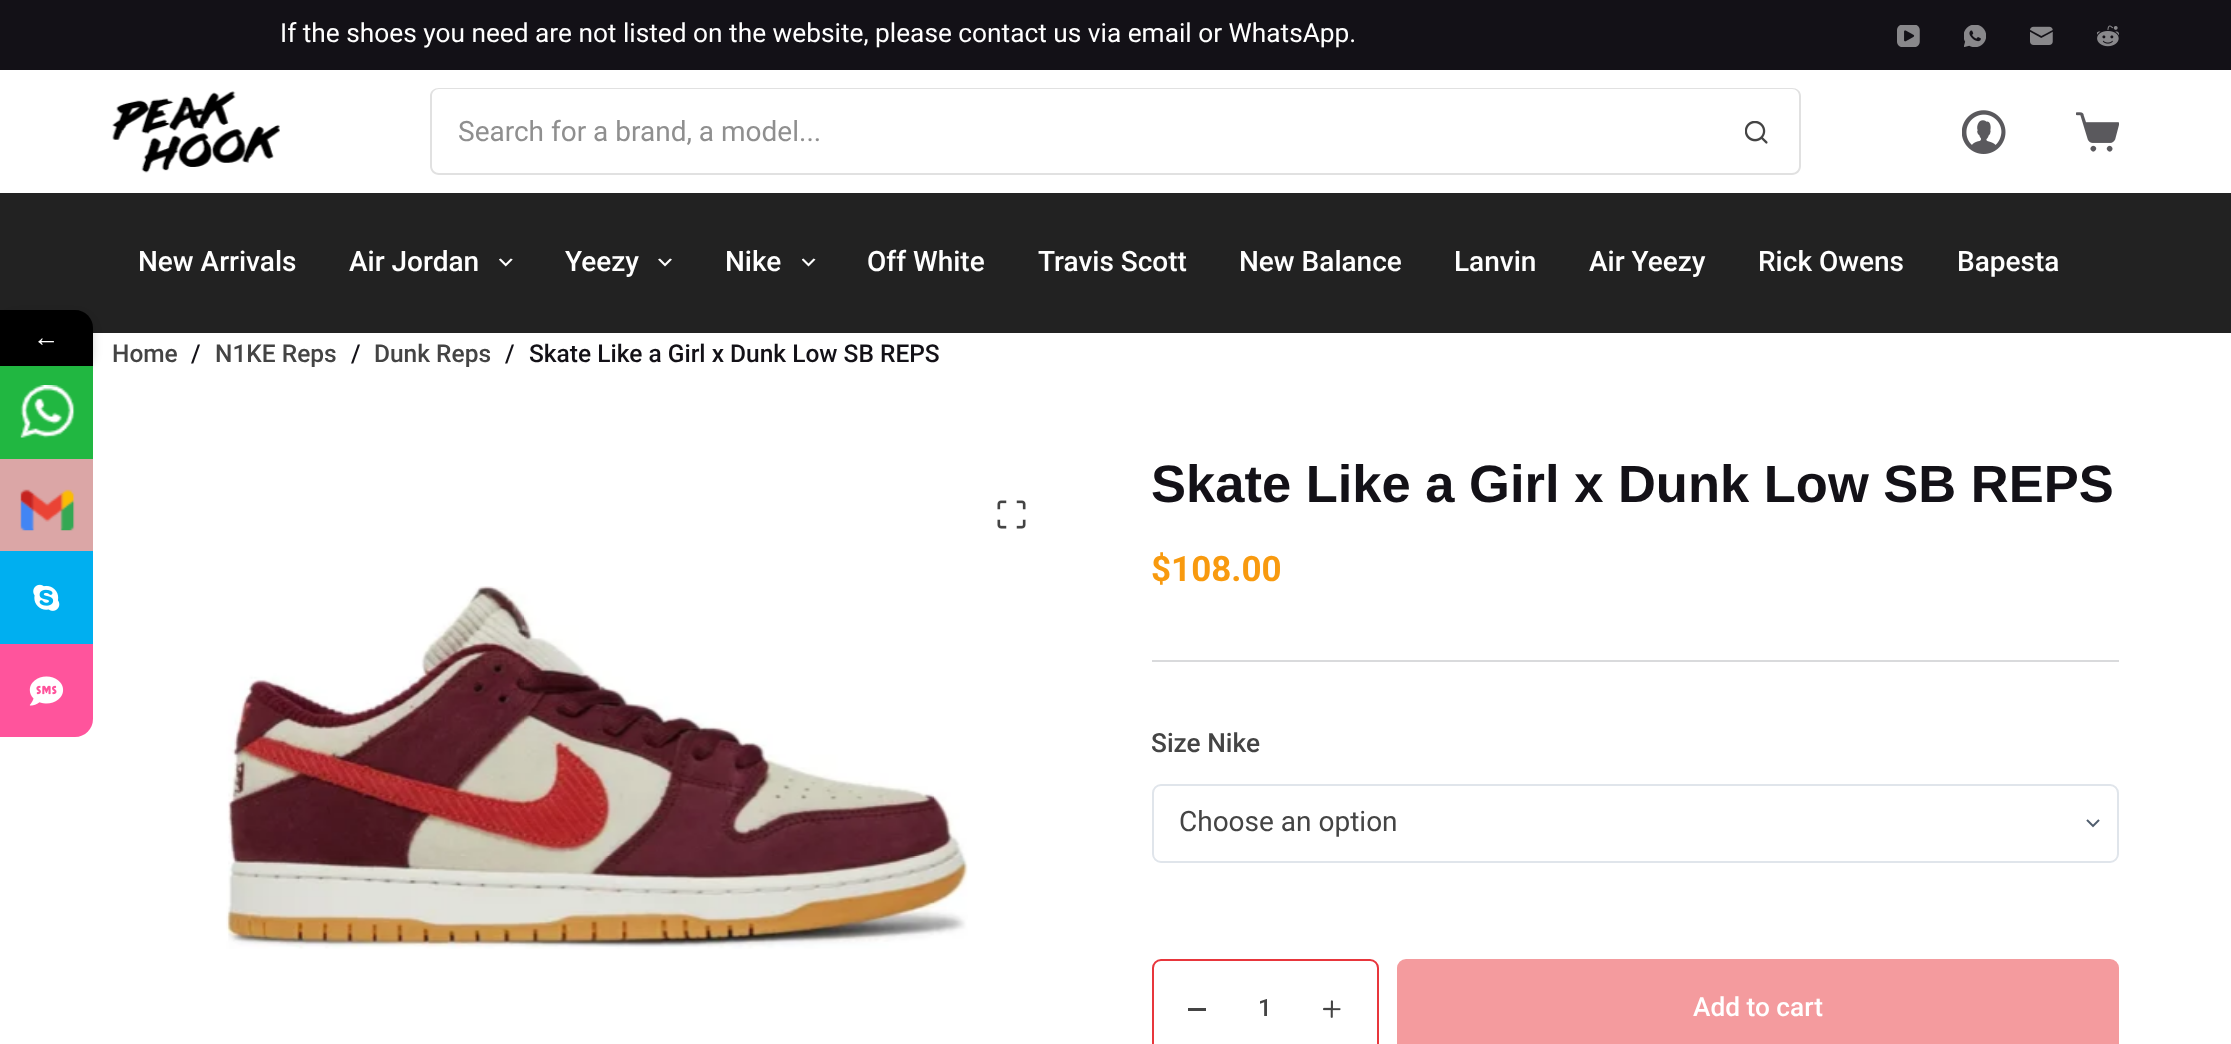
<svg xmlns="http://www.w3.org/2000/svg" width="2231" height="1044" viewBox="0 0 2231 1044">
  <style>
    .t1 { font: 26.25px Liberation Serif; fill: #fff; }
    .t2 { font: 26.25px Roboto; fill: #fff; }
    .t3 { font: 28px Roboto; fill: #8f8f8f; }
    .t4 { font: 500 28px Roboto; fill: #fff; }
    .t5 { font: 500 24.5px Roboto; fill: #444; }
    .t6 { font: 500 24.5px Roboto; fill: #131117; }
    .t7 { font: bold 52.5px Liberation Sans; fill: #131117; }
    .t8 { font: bold 35px Roboto; fill: #f89a0f; }
    .t9 { font: 500 26.25px Roboto; fill: #444; }
    .t10 { font: 28px Roboto; fill: #444; }
    .t11 { font: 500 24px Roboto; fill: #444; }
    .t12 { font: 500 26.25px Roboto; fill: #fff; }
  </style>
  <rect width="100%" height="100%" fill="#fff"/>
  <rect x="0" y="193" width="2231" height="140" fill="#222"/>
  <rect x="0" y="315" width="93" height="56" rx="18" fill="#00000029" filter="blur(5px)"/>
  <path d="M0 310H75C85 310 93 318 93 328V366H0Z" fill="#000"/>
  <text x="33" y="346" class="t1">←</text>
  <rect x="0" y="366" width="93" height="93" fill="#21b741"/>
  <image x="20" y="385" width="55" height="53" href="images/1.png"/>
  <rect x="0" y="459" width="93" height="92" fill="#dba6a6"/>
  <image x="20" y="489" width="55" height="42" href="images/2.png"/>
  <rect x="0" y="551" width="93" height="93" fill="#00aff0"/>
  <image x="33" y="584" width="27" height="27" href="images/3.png"/>
  <path d="M0 644H93V719C93 729 85 737 75 737H0Z" fill="#ff549c"/>
  <image x="29" y="676" width="35" height="30" href="images/4.png"/>
  <rect x="0" y="0" width="2231" height="70" fill="#131117"/>
  <text x="280" y="42" class="t2">If the shoes you need are not listed on the website, please contact us via email or WhatsApp.</text>
  <image x="1897" y="25" width="23" height="22" href="images/5.png"/>
  <image x="1964" y="25" width="22" height="22" href="images/6.png"/>
  <image x="2030" y="26" width="23" height="19" href="images/7.png"/>
  <image x="2097" y="25" width="22" height="22" href="images/8.png"/>
  <image x="112" y="91" width="168" height="82" href="images/9.png"/>
  <path d="M439 88H1713V175H439C434 175 430 171 430 166V96C430 91 434 88 439 88ZM439 89H1713V173H439C435 173 432 170 432 166V96C432 92 435 89 439 89Z" fill="#e1e1e1" fill-rule="evenodd"/>
  <text x="458" y="141" class="t3">Search for a brand, a model...</text>
  <path d="M1713 88H1792C1797 88 1801 91 1801 96V166C1801 171 1797 175 1792 175H1713ZM1713 89H1792C1796 89 1799 92 1799 96V166C1799 170 1796 173 1792 173H1713Z" fill="#e1e1e1" fill-rule="evenodd"/>
  <image x="1745" y="121" width="23" height="23" href="images/10.png"/>
  <image x="1962" y="110" width="44" height="44" href="images/11.png"/>
  <image x="2076" y="112" width="43" height="40" href="images/12.png"/>
  <text x="138" y="271" class="t4">New Arrivals</text>
  <text x="349" y="271" class="t4">Air Jordan</text>
  <image x="499" y="258" width="14" height="9" href="images/13.png"/>
  <text x="565" y="271" class="t4">Yeezy</text>
  <image x="658" y="258" width="14" height="9" href="images/14.png"/>
  <text x="725" y="271" class="t4">Nike</text>
  <image x="802" y="258" width="14" height="9" href="images/15.png"/>
  <text x="867" y="271" class="t4">Off White</text>
  <text x="1038" y="271" class="t4">Travis Scott</text>
  <text x="1239" y="271" class="t4">New Balance</text>
  <text x="1454" y="271" class="t4">Lanvin</text>
  <text x="1589" y="271" class="t4">Air Yeezy</text>
  <text x="1758" y="271" class="t4">Rick Owens</text>
  <text x="1957" y="271" class="t4">Bapesta</text>
  <text x="112" y="362" class="t5">Home</text>
  <text x="191" y="362" class="t6">/</text>
  <text x="215" y="362" class="t5">N1KE Reps</text>
  <text x="351" y="362" class="t6">/</text>
  <text x="374" y="362" class="t5">Dunk Reps</text>
  <text x="505" y="362" class="t6">/</text>
  <text x="529" y="362" class="t6">Skate Like a Girl x Dunk Low SB REPS</text>
  <image x="997" y="500" width="29" height="29" href="images/16.png"/>
  <image x="226" y="586" width="742" height="363" href="images/17.png"/>
  <text x="1151" y="502" class="t7">Skate Like a Girl x Dunk Low SB REPS</text>
  <text x="1151" y="581" class="t8">$108.00</text>
  <rect x="1152" y="660" width="967" height="2" fill="#d9dadc"/>
  <text x="1151" y="752" class="t9">Size Nike</text>
  <image x="2086" y="819" width="14" height="9" href="images/18.png"/>
  <rect x="1153" y="785" width="965" height="77" rx="8" fill="none" stroke="#e0e5eb" stroke-width="2"/>
  <text x="1179" y="831" class="t10">Choose an option</text>
  <rect x="1153" y="960" width="225" height="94" rx="8" fill="none" stroke="#e8363c" stroke-width="2"/>
  <rect x="1188" y="1008" width="18" height="3" fill="#444"/>
  <text x="1258" y="1016" class="t11">1</text>
  <image x="1323" y="1000" width="18" height="18" href="images/19.png"/>
  <rect x="1397" y="959" width="722" height="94" rx="9" fill="#f49b9e"/>
  <text x="1693" y="1016" class="t12">Add to cart</text>
</svg>
